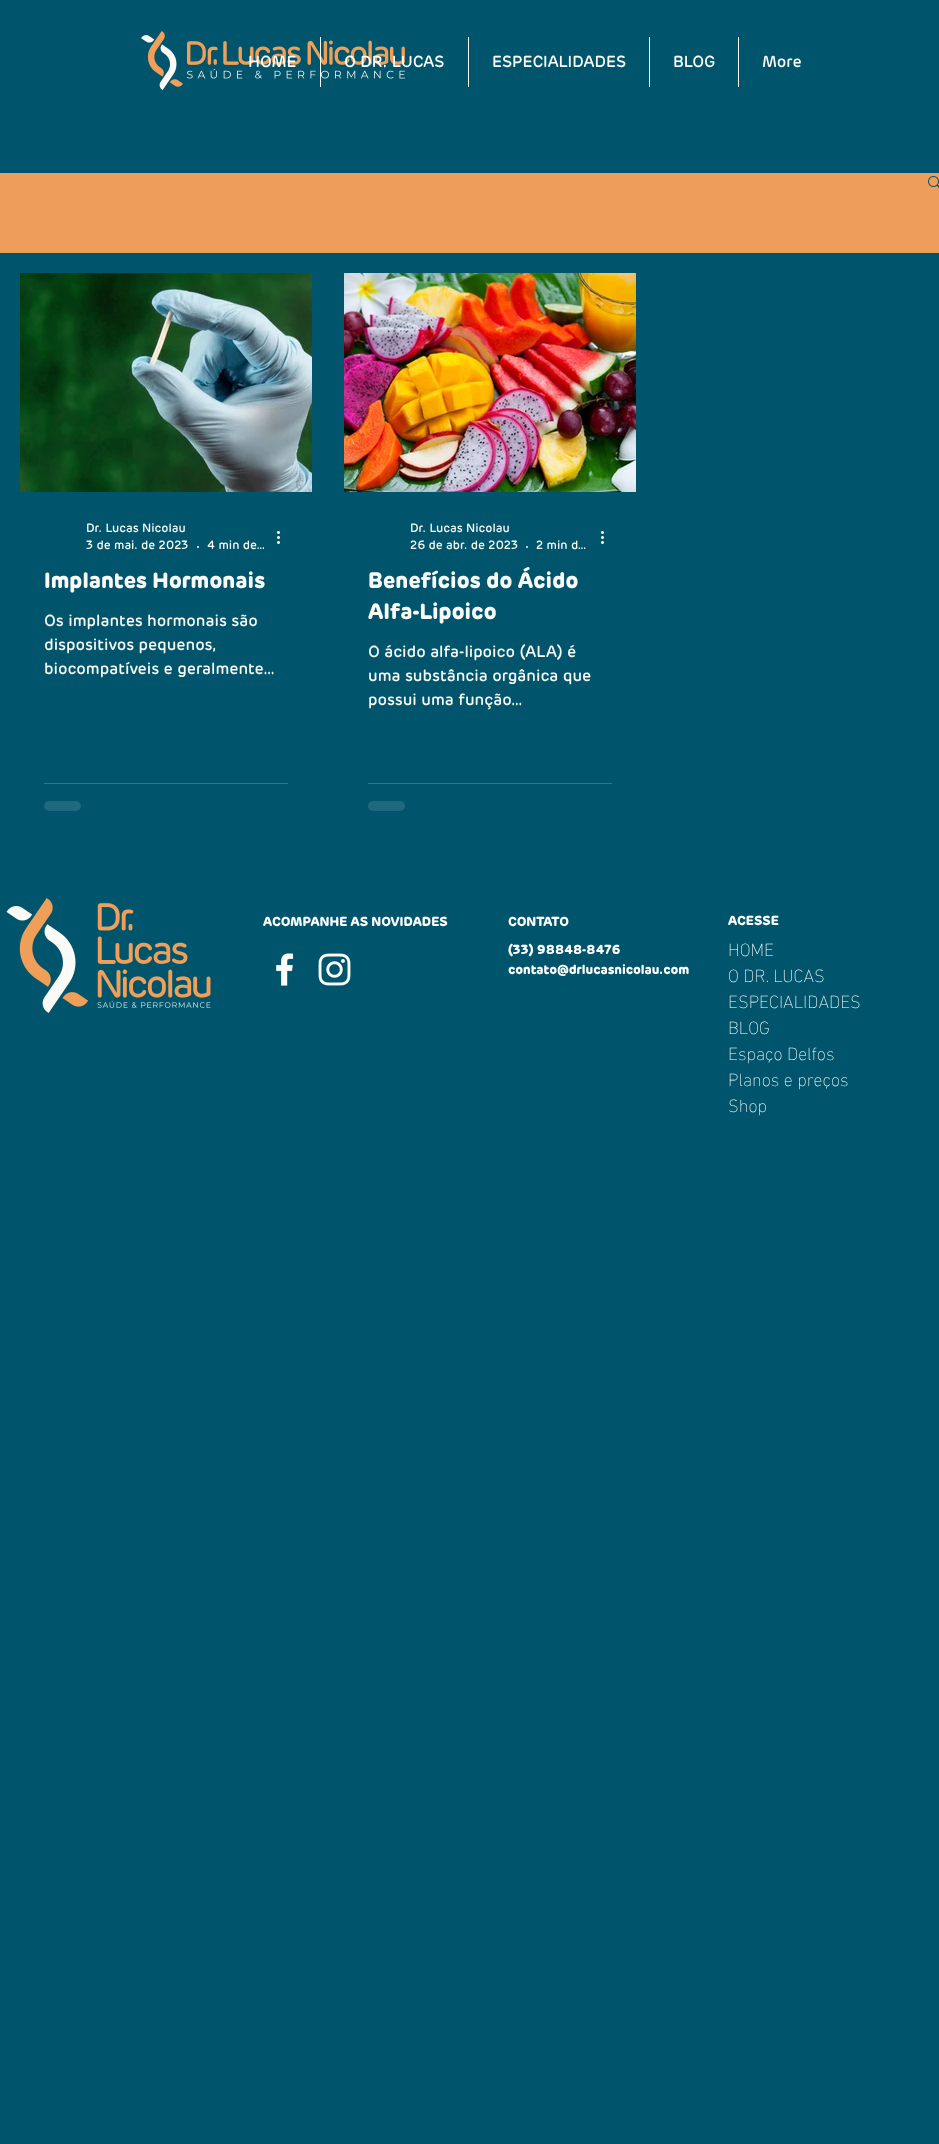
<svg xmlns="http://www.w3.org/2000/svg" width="939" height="2144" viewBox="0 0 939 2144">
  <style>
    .t1 { font: 500 16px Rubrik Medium; fill: #fff; }
    .t2 { font: 500 12px Rubrik Medium; fill: #fafaf7; }
    .t3 { font: bold 22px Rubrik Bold; fill: #fafaf7; }
    .t4 { font: 500 16px Rubrik Medium; fill: #fafaf7; }
    .t5 { font: bold 13px Rubrik Bold; fill: #fff; }
    .t6 { font: 200 18px 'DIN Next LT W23'; fill: #fff; }
  </style>
  <rect width="100%" height="100%" fill="#00556c"/>
  <image x="141" y="31" width="264" height="59" href="images/1.png"/>
  <text x="248" y="67" class="t1">HOME</text>
  <rect x="320" y="37" width="1" height="50" fill="#fafaf7"/>
  <text x="344" y="67" class="t1">O DR. LUCAS</text>
  <rect x="468" y="37" width="1" height="50" fill="#fafaf7"/>
  <text x="492" y="67" class="t1">ESPECIALIDADES</text>
  <rect x="649" y="37" width="1" height="50" fill="#fafaf7"/>
  <text x="673" y="67" class="t1">BLOG</text>
  <rect x="738" y="37" width="1" height="50" fill="#fafaf7"/>
  <text x="762" y="67" class="t1">More</text>
  <rect x="0" y="173" width="939" height="80" fill="#ee9e5a"/>
  <image x="928" y="176" width="11" height="12" href="images/2.png"/>
  <image x="20" y="273" width="292" height="219" href="images/3.png"/>
  <text x="86" y="532" class="t2">Dr. Lucas Nicolau</text>
  <text x="86" y="549" class="t2">3 de mai. de 2023</text>
  <circle cx="198" cy="547" r="1" fill="#fafaf7"/>
  <text x="207" y="549" class="t2">4 min de…</text>
  <image x="277" y="531" width="3" height="13" href="images/4.png"/>
  <text x="44" y="588" class="t3">Implantes Hormonais</text>
  <text x="44" y="626" class="t4">Os implantes hormonais são</text>
  <text x="44" y="650" class="t4">dispositivos pequenos,</text>
  <text x="44" y="674" class="t4">biocompatíveis e geralmente…</text>
  <rect x="44" y="783" width="244" height="1" fill="#327688"/>
  <rect x="44" y="801" width="37" height="10" rx="5" fill="#1e697d"/>
  <image x="344" y="273" width="292" height="219" href="images/5.png"/>
  <text x="410" y="532" class="t2">Dr. Lucas Nicolau</text>
  <text x="410" y="549" class="t2">26 de abr. de 2023</text>
  <circle cx="527" cy="547" r="1" fill="#fafaf7"/>
  <text x="536" y="549" class="t2">2 min d…</text>
  <image x="601" y="531" width="3" height="13" href="images/4.png"/>
  <text x="368" y="588" class="t3">Benefícios do Ácido</text>
  <text x="368" y="619" class="t3">Alfa-Lipoico</text>
  <text x="368" y="657" class="t4">O ácido alfa-lipoico (ALA) é</text>
  <text x="368" y="681" class="t4">uma substância orgânica que</text>
  <text x="368" y="705" class="t4">possui uma função…</text>
  <rect x="368" y="783" width="244" height="1" fill="#327688"/>
  <rect x="368" y="801" width="37" height="10" rx="5" fill="#1e697d"/>
  <image x="6" y="898" width="205" height="115" href="images/6.png"/>
  <text x="263" y="926" class="t5">ACOMPANHE AS NOVIDADES</text>
  <image x="276" y="953" width="18" height="33" href="images/7.png"/>
  <image x="318" y="953" width="33" height="33" href="images/8.png"/>
  <text x="508" y="926" class="t5">CONTATO</text>
  <text x="508" y="954" class="t5">(33) 98848-8476</text>
  <text x="508" y="974" class="t5">contato@drlucasnicolau.com</text>
  <text x="728" y="925" class="t5">ACESSE</text>
  <text x="728" y="956" class="t6">HOME</text>
  <text x="728" y="982" class="t6">O DR. LUCAS</text>
  <text x="728" y="1008" class="t6">ESPECIALIDADES</text>
  <text x="728" y="1034" class="t6">BLOG</text>
  <text x="728" y="1060" class="t6">Espaço Delfos</text>
  <text x="728" y="1086" class="t6">Planos e preços</text>
  <text x="728" y="1112" class="t6">Shop</text>
</svg>
